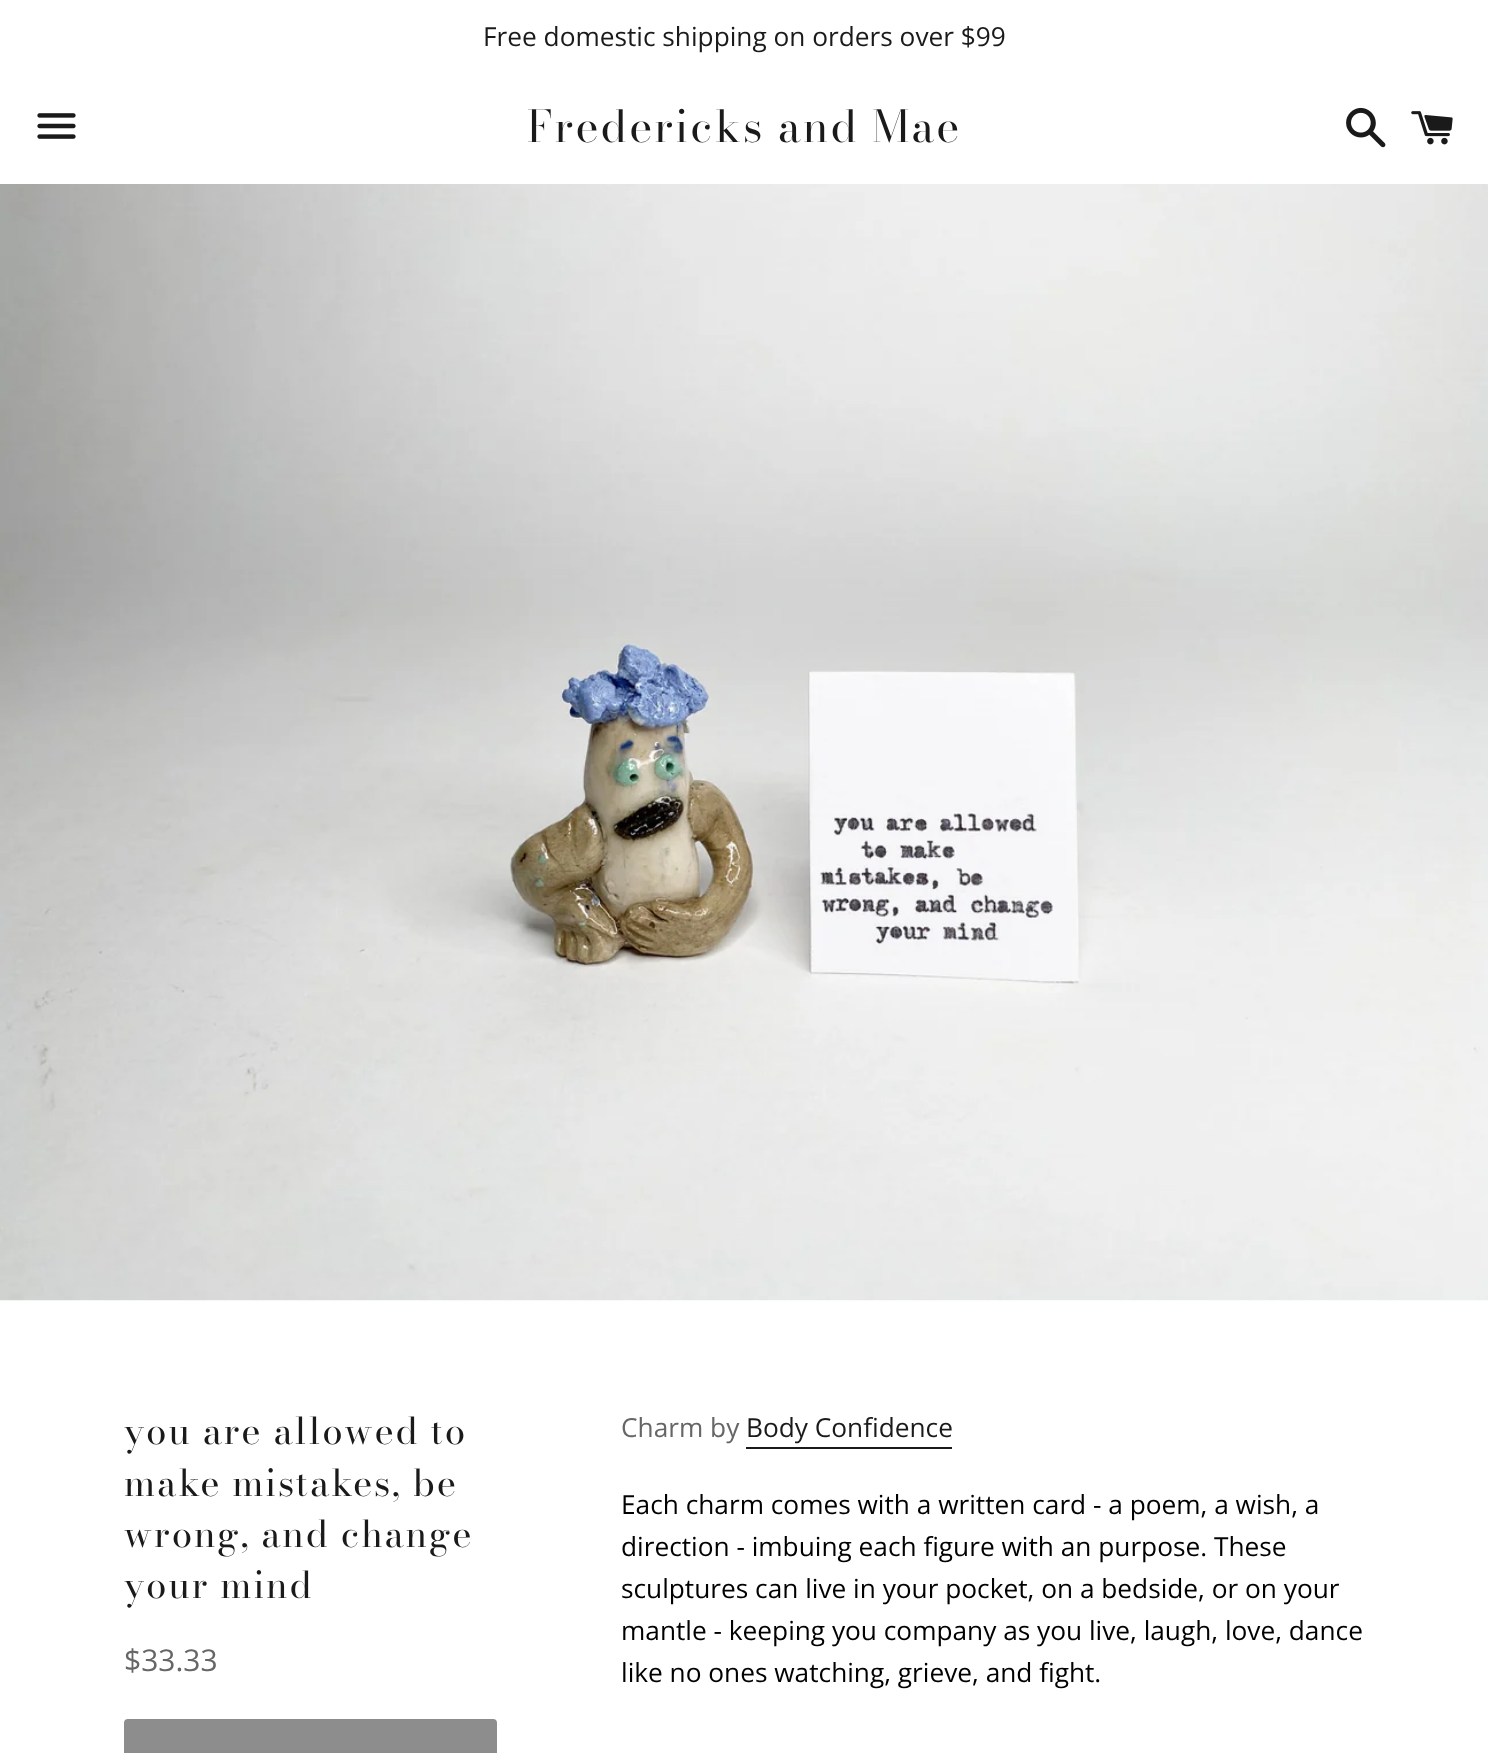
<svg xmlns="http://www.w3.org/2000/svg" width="1488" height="1753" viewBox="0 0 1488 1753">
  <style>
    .t1 { font: 26.25px Open Sans; fill: #1a1a1a; }
    .t2 { font: 43.75px 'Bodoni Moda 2'; letter-spacing: 2.2px; fill: #1a1a1a; }
    .t3 { font: 36.75px Bodoni Moda; letter-spacing: 1.8px; fill: #1a1a1a; }
    .t4 { font: 30px Open Sans; fill: #666; }
    .t5 { font: 26.25px Open Sans; fill: #666; }
    .t6 { font: 26.25px Open Sans; fill: #000; }
  </style>
  <rect width="100%" height="100%" fill="#fff"/>
  <text x="483" y="46" class="t1">Free domestic shipping on orders over $99</text>
  <image x="37" y="113" width="39" height="26" href="images/1.png"/>
  <text x="527" y="142" class="t2">Fredericks and Mae</text>
  <image x="1346" y="107" width="40" height="41" href="images/2.png"/>
  <image x="1411" y="111" width="42" height="34" href="images/3.png"/>
  <image x="0" y="184" width="1488" height="1117" href="images/4.png"/>
  <text x="124" y="1444" class="t3">you are allowed to</text>
  <text x="124" y="1496" class="t3">make mistakes, be</text>
  <text x="124" y="1547" class="t3">wrong, and change</text>
  <text x="124" y="1598" class="t3">your mind</text>
  <text x="124" y="1671" class="t4">$33.33</text>
  <rect x="126" y="1721" width="369" height="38" rx="2" fill="#8d8d8d" stroke="#8d8d8d" stroke-width="4"/>
  <text x="621" y="1437" class="t5">Charm by</text>
  <text x="746" y="1437" class="t1">Body Confidence</text>
  <rect x="746" y="1447" width="206" height="2" fill="#1a1a1a"/>
  <text x="621" y="1514" class="t6">Each charm comes with a written card - a poem, a wish, a</text>
  <text x="621" y="1556" class="t6">direction - imbuing each figure with an purpose. These</text>
  <text x="621" y="1598" class="t6">sculptures can live in your pocket, on a bedside, or on your</text>
  <text x="621" y="1640" class="t6">mantle - keeping you company as you live, laugh, love, dance</text>
  <text x="621" y="1682" class="t6">like no ones watching, grieve, and fight.</text>
</svg>
